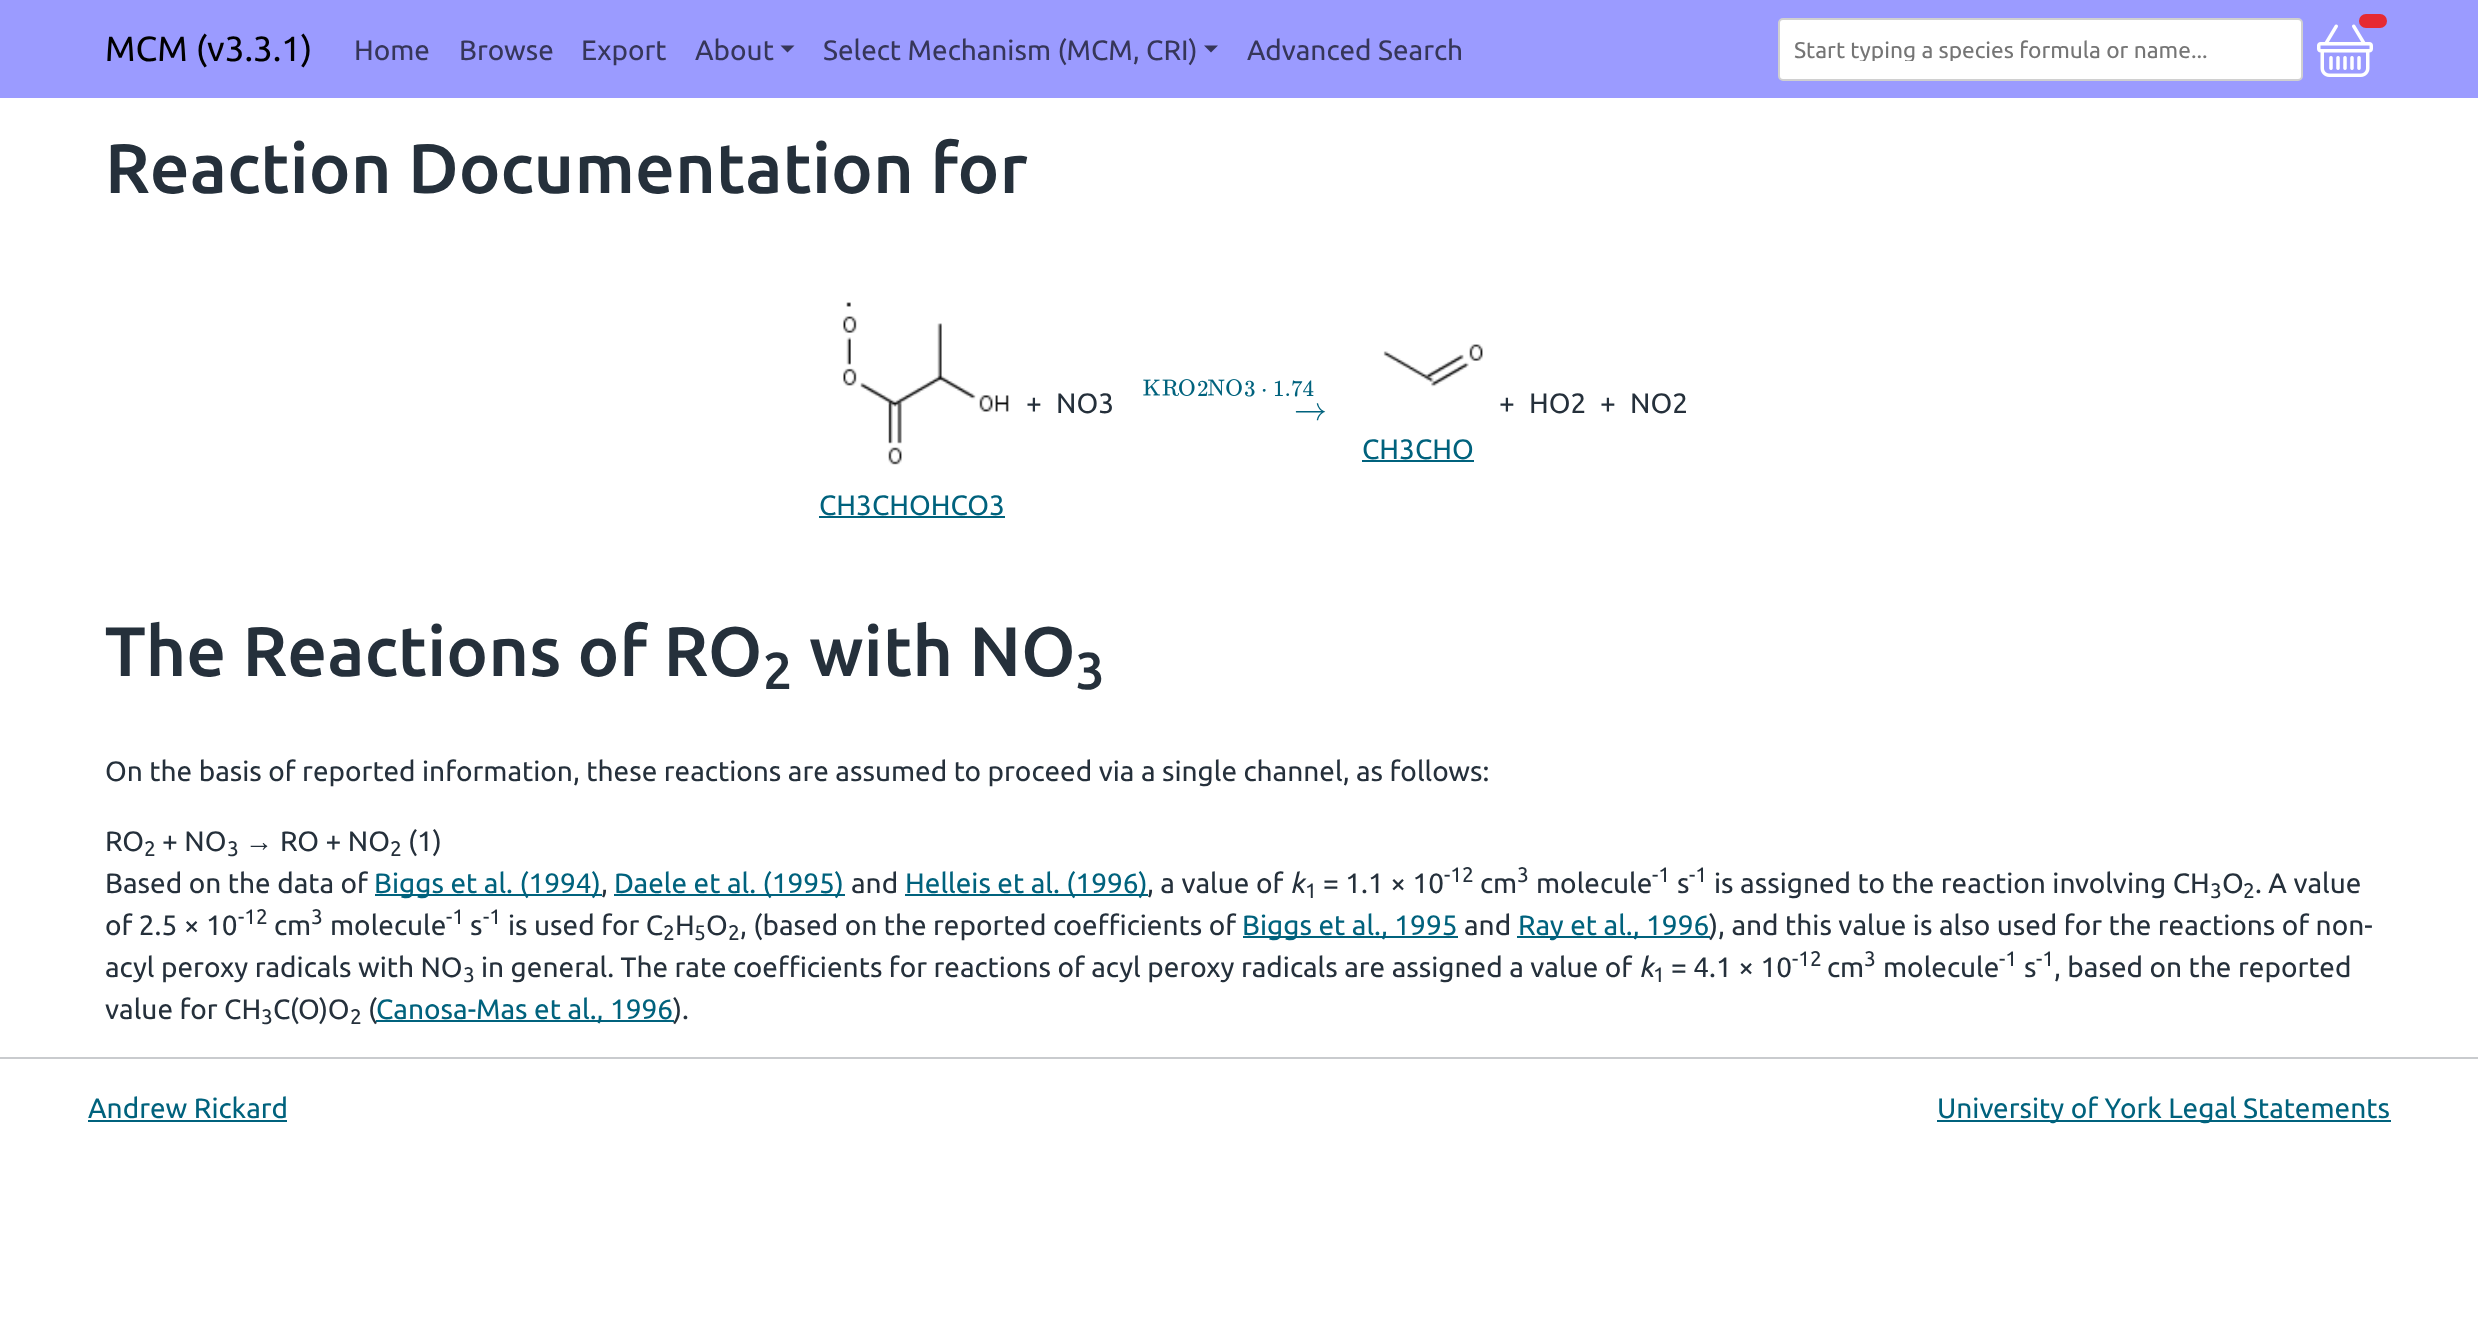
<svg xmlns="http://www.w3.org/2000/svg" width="2478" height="1328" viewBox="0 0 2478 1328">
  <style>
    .t1 { font: 35px Ubuntu; fill: #000; }
    .t2 { font: 28px Ubuntu; fill: #363659; }
    .t3 { font: 22.75px Ubuntu; fill: #757575; }
    .t4 { font: 500 70px Ubuntu; fill: #25303b; }
    .t5 { font: 28px Ubuntu; fill: #25303b; }
    .t6 { font: 28px Ubuntu; fill: #00627d; }
    .t7 { font: 23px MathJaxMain; fill: #00627d; }
    .t8 { font: 33px MathJaxMain; fill: #00627d; }
    .t9 { font: 500 52px Ubuntu; fill: #25303b; }
    .t10 { font: 21px Ubuntu; fill: #25303b; }
    .t11 { font: 28px Liberation Sans; fill: #25303b; }
    .t12 { font: italic 28px Ubuntu; fill: #25303b; }
  </style>
  <defs>
    <clipPath id="clip1"><rect x="1794" y="37" width="507" height="24"/></clipPath>
  </defs>
  <rect width="100%" height="100%" fill="#fff"/>
  <rect x="0" y="0" width="2478" height="98" fill="#9b9bff"/>
  <text x="105" y="61" class="t1">MCM (v3.3.1)</text>
  <text x="354" y="60" class="t2">Home</text>
  <text x="459" y="60" class="t2">Browse</text>
  <text x="581" y="60" class="t2">Export</text>
  <text x="695" y="60" class="t2">About</text>
  <path d="M780.5 45.5H794.5L787.5 52.5Z" fill="#363659"/>
  <text x="823" y="60" class="t2">Select Mechanism (MCM, CRI)</text>
  <path d="M1204 45.5H1218L1211 52.5Z" fill="#363659"/>
  <text x="1247" y="60" class="t2">Advanced Search</text>
  <rect x="1779" y="19" width="523" height="61" rx="4" fill="#fff" stroke="#d0d0d0" stroke-width="2"/>
  <g clip-path="url(#clip1)">
    <text x="1794" y="58" class="t3">Start typing a species formula or name...</text>
  </g>
  <image x="2317" y="24" width="56" height="53" href="images/1.png"/>
  <rect x="2359" y="14" width="28" height="14" rx="7" fill="#e62a32"/>
  <text x="105" y="193" class="t4">Reaction Documentation for</text>
  <text x="1026" y="413" class="t5">+</text>
  <text x="1056" y="413" class="t5">NO3</text>
  <image x="843" y="302" width="166" height="163" href="images/2.png"/>
  <text x="819" y="515" class="t6">CH3CHOHCO3</text>
  <rect x="819" y="516" width="186" height="2" fill="#00627d"/>
  <image x="1143" y="379" width="17" height="17" href="images/3.png"/>
  <image x="1162" y="379" width="17" height="17" href="images/4.png"/>
  <image x="1179" y="379" width="16" height="17" href="images/5.png"/>
  <text x="1197" y="396" class="t7">2</text>
  <image x="1208" y="379" width="17" height="17" href="images/6.png"/>
  <image x="1226" y="379" width="16" height="17" href="images/7.png"/>
  <text x="1244" y="396" class="t7">3</text>
  <text x="1261" y="396" class="t7">⋅</text>
  <text x="1273" y="396" class="t7">1.74</text>
  <text x="1294" y="420" class="t8">→</text>
  <text x="1499" y="413" class="t5">+</text>
  <text x="1529" y="413" class="t5">HO2</text>
  <text x="1600" y="413" class="t5">+</text>
  <text x="1630" y="413" class="t5">NO2</text>
  <image x="1383" y="344" width="100" height="43" href="images/8.png"/>
  <text x="1362" y="459" class="t6">CH3CHO</text>
  <rect x="1362" y="460" width="112" height="2" fill="#00627d"/>
  <text x="105" y="676" class="t4">The Reactions of RO</text>
  <text x="763" y="689" class="t9">2</text>
  <text x="809" y="676" class="t4">with NO</text>
  <text x="1075" y="689" class="t9">3</text>
  <text x="105" y="781" class="t5">On the basis of reported information, these reactions are assumed to proceed via a single channel, as follows:</text>
  <text x="105" y="851" class="t5">RO</text>
  <text x="144" y="856" class="t10">2</text>
  <text x="162" y="851" class="t5">+ NO</text>
  <text x="227" y="856" class="t10">3</text>
  <text x="245" y="851" class="t11">→</text>
  <text x="280" y="851" class="t5">RO + NO</text>
  <text x="390" y="856" class="t10">2</text>
  <text x="408" y="851" class="t5">(1)</text>
  <text x="105" y="893" class="t5">Based on the data of</text>
  <rect x="375" y="894" width="227" height="2" fill="#00627d"/>
  <text x="374" y="893" class="t6">Biggs et al. (1994)</text>
  <text x="601" y="893" class="t5">,</text>
  <rect x="614" y="894" width="231" height="2" fill="#00627d"/>
  <text x="614" y="893" class="t6">Daele et al. (1995)</text>
  <text x="851" y="893" class="t5">and</text>
  <rect x="905" y="894" width="243" height="2" fill="#00627d"/>
  <text x="905" y="893" class="t6">Helleis et al. (1996)</text>
  <text x="1147" y="893" class="t5">, a value of</text>
  <text x="1290" y="893" class="t12">k</text>
  <text x="1305" y="898" class="t10">1</text>
  <text x="1323" y="893" class="t5">= 1.1 × 10</text>
  <text x="1444" y="882" class="t10">-12</text>
  <text x="1480" y="893" class="t5">cm</text>
  <text x="1517" y="882" class="t10">3</text>
  <text x="1536" y="893" class="t5">molecule</text>
  <text x="1652" y="882" class="t10">-1</text>
  <text x="1677" y="893" class="t5">s</text>
  <text x="1689" y="882" class="t10">-1</text>
  <text x="1714" y="893" class="t5">is assigned to the reaction involving CH</text>
  <text x="2210" y="898" class="t10">3</text>
  <text x="2222" y="893" class="t5">O</text>
  <text x="2243" y="898" class="t10">2</text>
  <text x="2255" y="893" class="t5">. A value</text>
  <text x="105" y="935" class="t5">of 2.5 × 10</text>
  <text x="238" y="924" class="t10">-12</text>
  <text x="274" y="935" class="t5">cm</text>
  <text x="311" y="924" class="t10">3</text>
  <text x="330" y="935" class="t5">molecule</text>
  <text x="446" y="924" class="t10">-1</text>
  <text x="470" y="935" class="t5">s</text>
  <text x="483" y="924" class="t10">-1</text>
  <text x="508" y="935" class="t5">is used for C</text>
  <text x="663" y="940" class="t10">2</text>
  <text x="675" y="935" class="t5">H</text>
  <text x="694" y="940" class="t10">5</text>
  <text x="706" y="935" class="t5">O</text>
  <text x="728" y="940" class="t10">2</text>
  <text x="740" y="935" class="t5">, (based on the reported coefficients of</text>
  <rect x="1243" y="936" width="215" height="2" fill="#00627d"/>
  <text x="1242" y="935" class="t6">Biggs et al., 1995</text>
  <text x="1464" y="935" class="t5">and</text>
  <rect x="1517" y="936" width="193" height="2" fill="#00627d"/>
  <text x="1518" y="935" class="t6">Ray et al., 1996</text>
  <text x="1709" y="935" class="t5">), and this value is also used for the reactions of non-</text>
  <text x="105" y="977" class="t5">acyl peroxy radicals with NO</text>
  <text x="463" y="982" class="t10">3</text>
  <text x="481" y="977" class="t5">in general. The rate coefficients for reactions of acyl peroxy radicals are assigned a value of</text>
  <text x="1639" y="977" class="t12">k</text>
  <text x="1653" y="982" class="t10">1</text>
  <text x="1671" y="977" class="t5">= 4.1 × 10</text>
  <text x="1792" y="966" class="t10">-12</text>
  <text x="1827" y="977" class="t5">cm</text>
  <text x="1864" y="966" class="t10">3</text>
  <text x="1883" y="977" class="t5">molecule</text>
  <text x="1999" y="966" class="t10">-1</text>
  <text x="2024" y="977" class="t5">s</text>
  <text x="2036" y="966" class="t10">-1</text>
  <text x="2054" y="977" class="t5">, based on the reported</text>
  <text x="105" y="1019" class="t5">value for CH</text>
  <text x="261" y="1024" class="t10">3</text>
  <text x="273" y="1019" class="t5">C(O)O</text>
  <text x="350" y="1024" class="t10">2</text>
  <text x="368" y="1019" class="t5">(</text>
  <rect x="376" y="1020" width="298" height="2" fill="#00627d"/>
  <text x="376" y="1019" class="t6">Canosa-Mas et al., 1996</text>
  <text x="673" y="1019" class="t5">).</text>
  <rect x="0" y="1057" width="2478" height="2" fill="#c9cbce"/>
  <text x="88" y="1118" class="t6">Andrew Rickard</text>
  <rect x="88" y="1120" width="199" height="2" fill="#00627d"/>
  <rect x="1937" y="1120" width="454" height="2" fill="#00627d"/>
  <text x="1937" y="1118" class="t6">University of York Legal Statements</text>
</svg>
